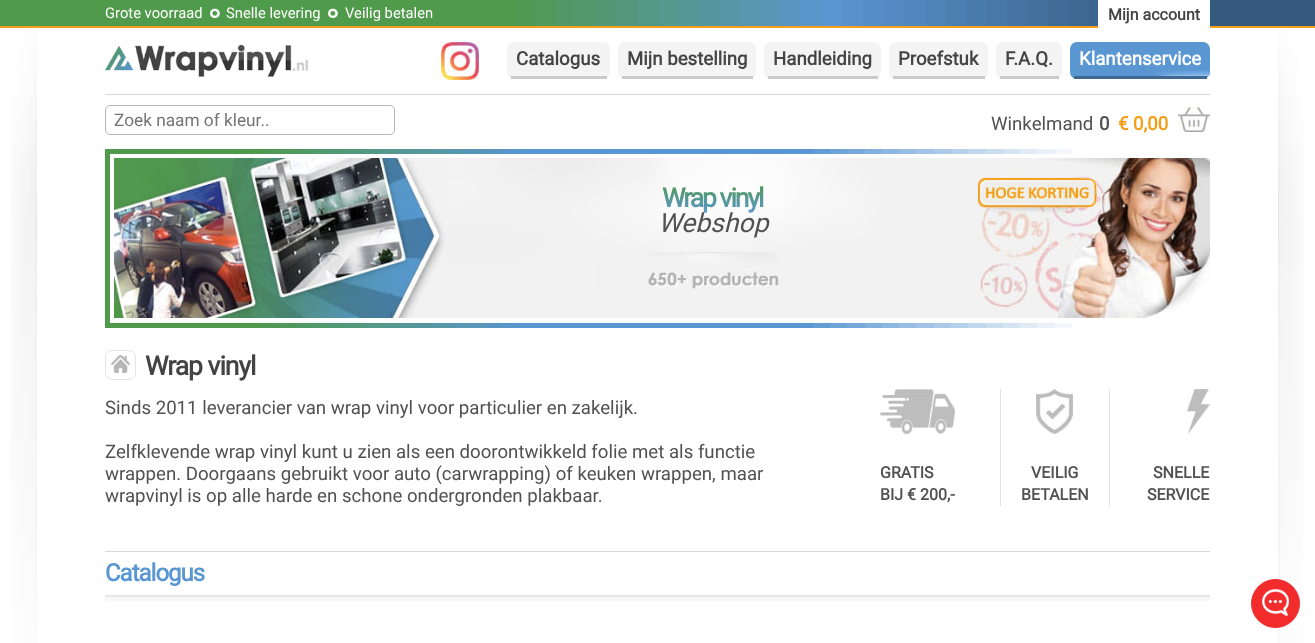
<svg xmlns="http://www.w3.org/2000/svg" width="1315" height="643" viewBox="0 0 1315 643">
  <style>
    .t1 { font: 14.75px Roboto; fill: #fff; }
    .t2 { font: bold 16px Roboto; fill: #444; }
    .t3 { font: bold 18.65px Roboto; fill: #444; }
    .t4 { font: bold 18.65px Roboto; fill: #fff; }
    .t5 { font: 17.25px Roboto; fill: #757575; }
    .t6 { font: 18.65px Roboto; fill: #515151; }
    .t7 { font: bold 18.65px Roboto; fill: #515151; }
    .t8 { font: bold 18.65px Roboto; fill: #f59b0e; }
    .t9 { font: bold 26.5px Roboto; letter-spacing: -2px; fill: url(#g1); }
    .t10 { font: italic 26.5px Roboto; fill: #515151; }
    .t11 { font: bold 26.5px Roboto; letter-spacing: -1px; fill: #444; }
    .t12 { font: bold 16px Roboto; fill: #515151; }
    .t13 { font: bold 24px Roboto; letter-spacing: -1px; fill: #5a96d2; }
  </style>
  <defs>
    <linearGradient id="g1" gradientUnits="userSpaceOnUse" x1="713" y1="182" x2="713" y2="214"><stop offset="0" stop-color="#509a4b"/><stop offset="1" stop-color="#5a96d2"/></linearGradient>
  </defs>
  <rect width="100%" height="100%" fill="#fff"/>
  <image x="11" y="28" width="1293" height="615" href="images/1.png"/>
  <image x="0" y="0" width="1315" height="26" href="images/2.png"/>
  <rect x="0" y="26" width="1315" height="2" fill="#f4a01b"/>
  <text x="105" y="18" class="t1">Grote voorraad</text>
  <image x="210" y="8" width="10" height="10" href="images/3.png"/>
  <text x="226" y="18" class="t1">Snelle levering</text>
  <image x="328" y="8" width="10" height="10" href="images/3.png"/>
  <text x="345" y="18" class="t1">Veilig betalen</text>
  <rect x="1098" y="0" width="112" height="28" fill="#fff"/>
  <text x="1108" y="20" class="t2">Mijn account</text>
  <image x="105" y="45" width="203" height="32" href="images/4.png"/>
  <image x="441" y="42" width="38" height="38" href="images/5.png"/>
  <rect x="507" y="42" width="103" height="37" rx="7" fill="#f4f4f4"/>
  <rect x="511" y="76" width="96" height="3" fill="#cacaca"/>
  <text x="516" y="65" class="t3">Catalogus</text>
  <rect x="618" y="42" width="138" height="37" rx="7" fill="#f4f4f4"/>
  <rect x="622" y="76" width="131" height="3" fill="#cacaca"/>
  <text x="627" y="65" class="t3">Mijn bestelling</text>
  <rect x="764" y="42" width="117" height="37" rx="7" fill="#f4f4f4"/>
  <rect x="768" y="76" width="110" height="3" fill="#cacaca"/>
  <text x="773" y="65" class="t3">Handleiding</text>
  <rect x="889" y="42" width="99" height="37" rx="7" fill="#f4f4f4"/>
  <rect x="893" y="76" width="92" height="3" fill="#cacaca"/>
  <text x="898" y="65" class="t3">Proefstuk</text>
  <rect x="996" y="42" width="66" height="37" rx="7" fill="#f4f4f4"/>
  <rect x="1000" y="76" width="59" height="3" fill="#cacaca"/>
  <text x="1005" y="65" class="t3">F.A.Q.</text>
  <rect x="1070" y="42" width="140" height="37" rx="7" fill="#5a96d2"/>
  <image x="1155" y="70" width="55" height="6" href="images/6.png"/>
  <rect x="1074" y="76" width="133" height="3" fill="#3f6993"/>
  <text x="1079" y="65" class="t4">Klantenservice</text>
  <rect x="105" y="94" width="1105" height="1" fill="#d7d7d7"/>
  <rect x="105.5" y="105.5" width="289" height="29" rx="4.5" fill="none" stroke="#b7b7b7"/>
  <text x="114" y="126" class="t5">Zoek naam of kleur..</text>
  <text x="991" y="130" class="t6">Winkelmand</text>
  <text x="1099" y="130" class="t7">0</text>
  <text x="1118" y="130" class="t8">€ 0,00</text>
  <image x="1178" y="107" width="32" height="25" href="images/7.png"/>
  <image x="105" y="149" width="967" height="179" href="images/8.png"/>
  <rect x="110" y="154" width="962" height="169" fill="#fff"/>
  <image x="114" y="158" width="334" height="160" href="images/9.png"/>
  <image x="448" y="158" width="530" height="160" href="images/10.png"/>
  <text x="662" y="207" class="t9">Wrap vinyl</text>
  <text x="658" y="232" class="t10">Webshop</text>
  <image x="643" y="252" width="136" height="40" href="images/11.png"/>
  <image x="978" y="158" width="232" height="160" href="images/12.png"/>
  <rect x="105.5" y="350.5" width="30" height="29" rx="6.5" fill="none" stroke="#e4e4e4"/>
  <image x="111" y="355" width="19" height="18" href="images/13.png"/>
  <text x="145" y="375" class="t11">Wrap vinyl</text>
  <text x="105" y="414" class="t6">Sinds 2011 leverancier van wrap vinyl voor particulier en zakelijk.</text>
  <text x="105" y="458" class="t6">Zelfklevende wrap vinyl kunt u zien als een doorontwikkeld folie met als functie</text>
  <text x="105" y="480" class="t6">wrappen. Doorgaans gebruikt voor auto (carwrapping) of keuken wrappen, maar</text>
  <text x="105" y="502" class="t6">wrapvinyl is op alle harde en schone ondergronden plakbaar.</text>
  <image x="880" y="389" width="75" height="45" href="images/14.png"/>
  <text x="880" y="478" class="t12">GRATIS</text>
  <text x="880" y="500" class="t12">BIJ € 200,-</text>
  <rect x="1109" y="389" width="1" height="117" fill="#e3e3e3"/>
  <rect x="1000" y="389" width="1" height="117" fill="#e3e3e3"/>
  <image x="1036" y="389" width="37" height="45" href="images/15.png"/>
  <text x="1031" y="478" class="t12">VEILIG</text>
  <text x="1021" y="500" class="t12">BETALEN</text>
  <image x="1187" y="389" width="23" height="45" href="images/16.png"/>
  <text x="1153" y="478" class="t12">SNELLE</text>
  <text x="1147" y="500" class="t12">SERVICE</text>
  <rect x="105" y="551" width="1105" height="1" fill="#d7d7d7"/>
  <text x="105" y="581" class="t13">Catalogus</text>
  <image x="105" y="595" width="1105" height="7" href="images/17.png"/>
  <circle cx="1275.5" cy="603.5" r="24" fill="#f22c2c" stroke="#f22c2c"/>
  <image x="1262" y="589" width="27" height="27" href="images/18.png"/>
</svg>
